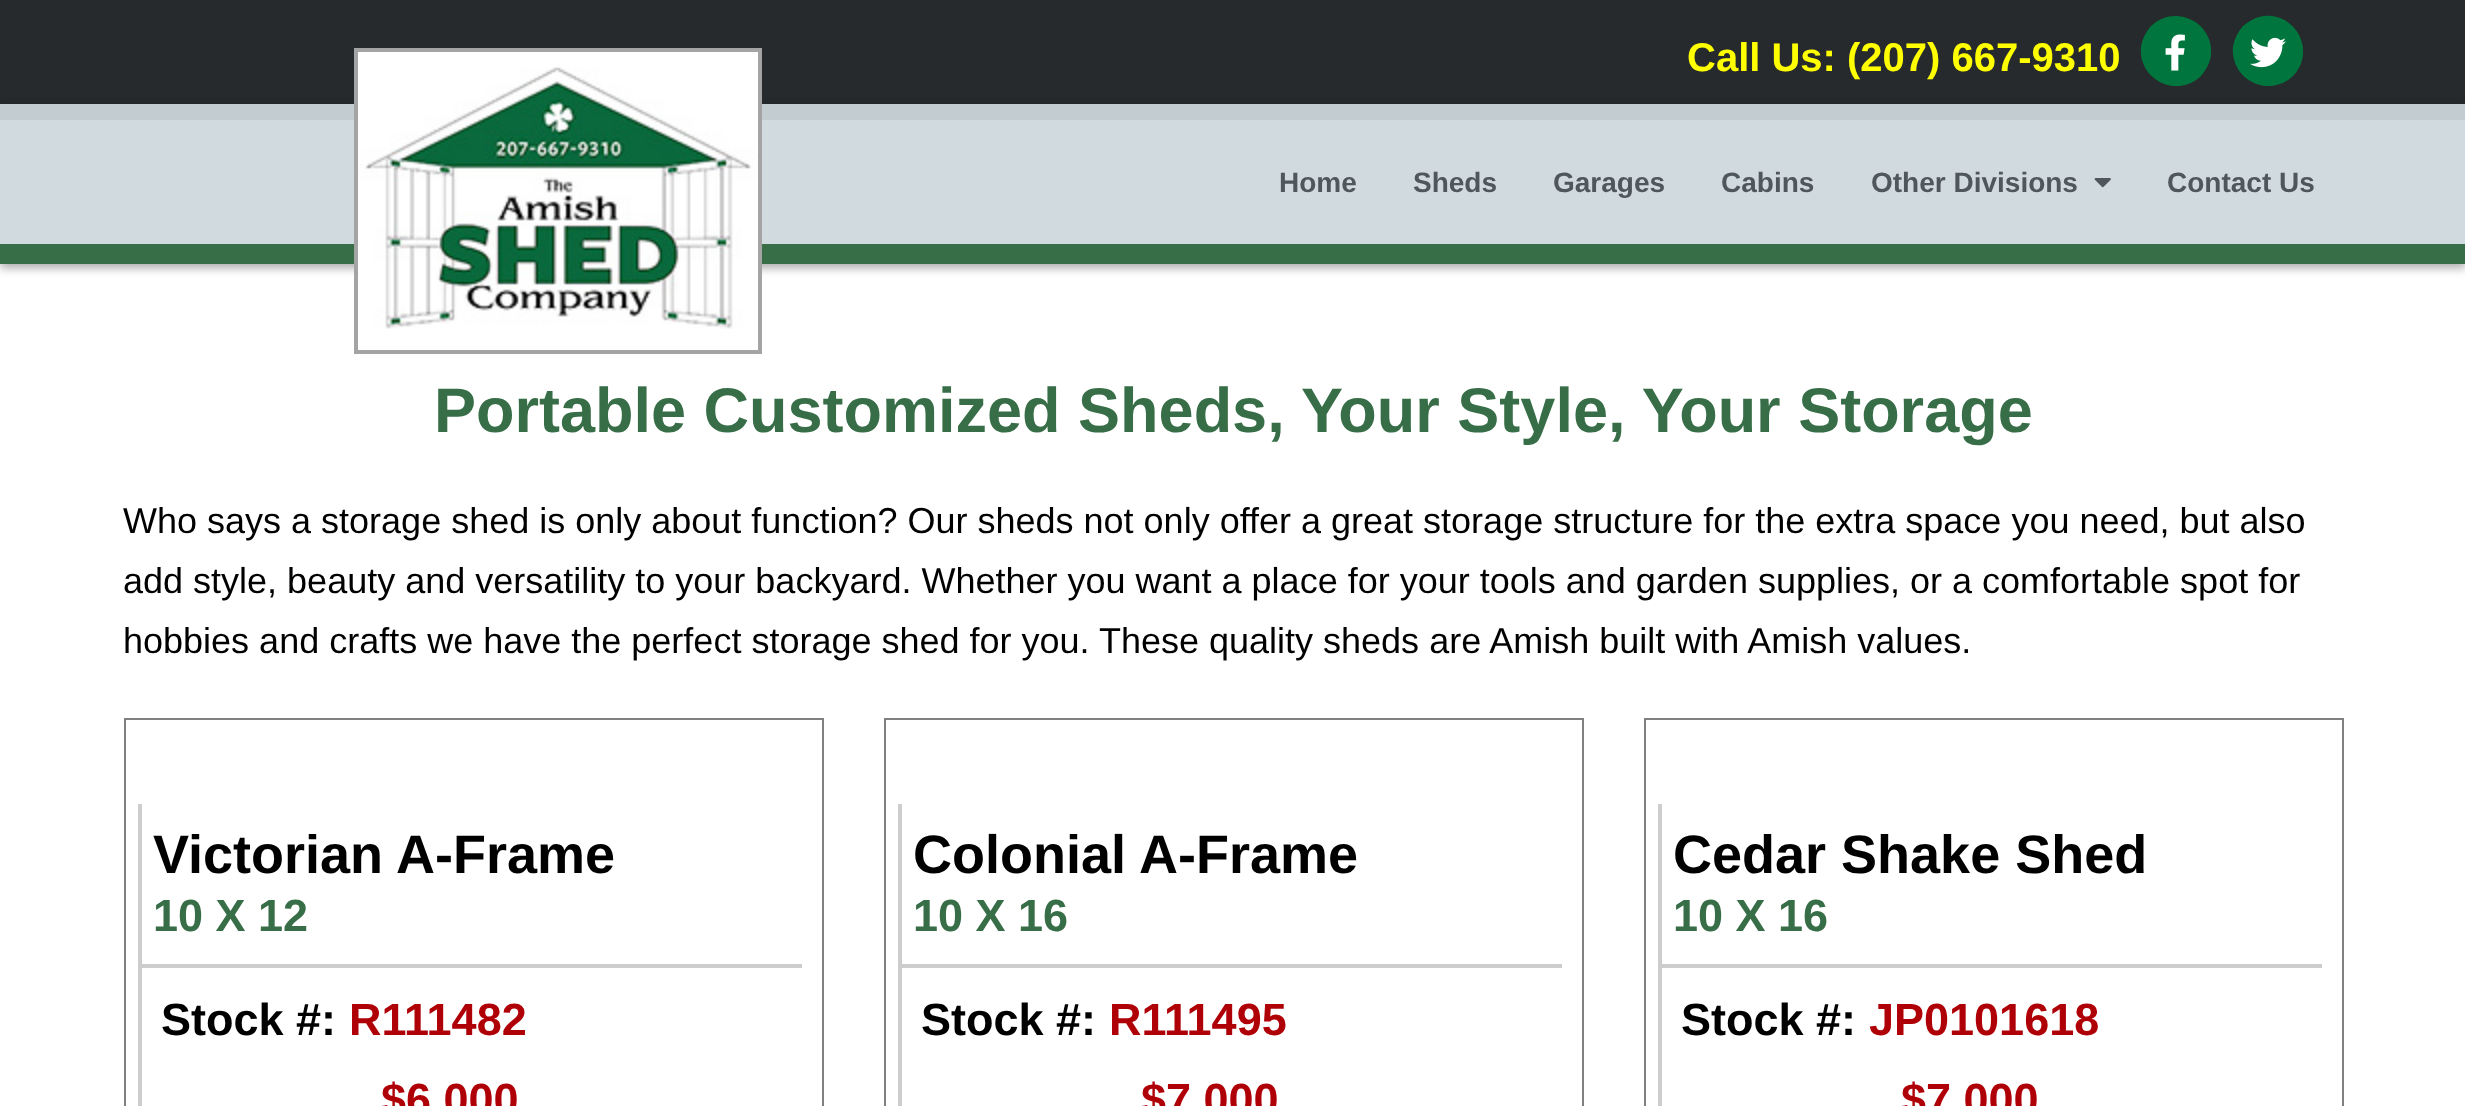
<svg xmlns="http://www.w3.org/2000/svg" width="2465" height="1106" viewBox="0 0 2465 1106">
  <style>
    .t1 { font: bold 40px Liberation Sans; fill: #ff0; }
    .t2 { font: bold 28px Liberation Sans; fill: #50575b; }
    .t3 { font: bold 63px Liberation Sans; fill: #376e47; }
    .t4 { font: 36px Liberation Sans; fill: #000; }
    .t5 { font: bold 54px Liberation Sans; fill: #000; }
    .t6 { font: bold 45px Liberation Sans; fill: #376e47; }
    .t7 { font: bold 45px Liberation Sans; fill: #000; }
    .t8 { font: bold 45px Liberation Sans; fill: #b00007; }
  </style>
  <rect width="100%" height="100%" fill="#fff"/>
  <rect x="0" y="0" width="2465" height="104" fill="#262a2c"/>
  <rect x="0" y="108" width="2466" height="160" fill="#00000054" filter="blur(5px)"/>
  <rect x="0" y="120" width="2465" height="124" fill="#d1dadf"/>
  <rect x="0" y="104" width="2465" height="16" fill="#c3ccd1"/>
  <rect x="0" y="244" width="2465" height="20" fill="#376e47"/>
  <rect x="356" y="50" width="404" height="302" fill="none" stroke="#a4a4a4" stroke-width="4"/>
  <image x="358" y="52" width="400" height="277" href="images/1.png"/>
  <text x="1687" y="71" class="t1">Call Us: (207) 667-9310</text>
  <path d="M2151 26C2175 3 2214 22 2211 55C2210 63 2206 70 2201 76C2177 99 2138 80 2141 47C2142 39 2146 32 2151 26Z" fill="#00753e"/>
  <image x="2165" y="34" width="20" height="37" href="images/2.png"/>
  <path d="M2243 26C2249 21 2256 17 2264 16C2297 13 2316 52 2293 76C2269 99 2230 80 2233 47C2234 39 2238 32 2243 26Z" fill="#00753e"/>
  <image x="2250" y="37" width="36" height="31" href="images/3.png"/>
  <text x="1279" y="192" class="t2">Home</text>
  <text x="1413" y="192" class="t2">Sheds</text>
  <text x="1553" y="192" class="t2">Garages</text>
  <text x="1721" y="192" class="t2">Cabins</text>
  <text x="1871" y="192" class="t2">Other Divisions</text>
  <image x="2094" y="178" width="17" height="10" href="images/4.png"/>
  <text x="2167" y="192" class="t2">Contact Us</text>
  <text x="434" y="432" class="t3">Portable Customized Sheds, Your Style, Your Storage</text>
  <text x="123" y="533" class="t4">Who says a storage shed is only about function? Our sheds not only offer a great storage structure for the extra space you need, but also</text>
  <text x="123" y="593" class="t4">add style, beauty and versatility to your backyard. Whether you want a place for your tools and garden supplies, or a comfortable spot for</text>
  <text x="123" y="653" class="t4">hobbies and crafts we have the perfect storage shed for you. These quality sheds are Amish built with Amish values.</text>
  <rect x="125" y="719" width="698" height="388" fill="none" stroke="#808080" stroke-width="2"/>
  <rect x="138" y="964" width="664" height="4" fill="#cdcdcd"/>
  <rect x="138" y="804" width="4" height="302" fill="#cdcdcd"/>
  <text x="153" y="873" class="t5">Victorian A-Frame</text>
  <text x="153" y="931" class="t6">10 X 12</text>
  <text x="161" y="1035" class="t7">Stock #:</text>
  <text x="349" y="1035" class="t8">R111482</text>
  <text x="381" y="1115" class="t8">$6,000</text>
  <rect x="885" y="719" width="698" height="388" fill="none" stroke="#808080" stroke-width="2"/>
  <rect x="898" y="964" width="664" height="4" fill="#cdcdcd"/>
  <rect x="898" y="804" width="4" height="302" fill="#cdcdcd"/>
  <text x="913" y="873" class="t5">Colonial A-Frame</text>
  <text x="913" y="931" class="t6">10 X 16</text>
  <text x="921" y="1035" class="t7">Stock #:</text>
  <text x="1109" y="1035" class="t8">R111495</text>
  <text x="1141" y="1115" class="t8">$7,000</text>
  <rect x="1645" y="719" width="698" height="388" fill="none" stroke="#808080" stroke-width="2"/>
  <rect x="1658" y="964" width="664" height="4" fill="#cdcdcd"/>
  <rect x="1658" y="804" width="4" height="302" fill="#cdcdcd"/>
  <text x="1673" y="873" class="t5">Cedar Shake Shed</text>
  <text x="1673" y="931" class="t6">10 X 16</text>
  <text x="1681" y="1035" class="t7">Stock #:</text>
  <text x="1869" y="1035" class="t8">JP0101618</text>
  <text x="1901" y="1115" class="t8">$7,000</text>
</svg>
